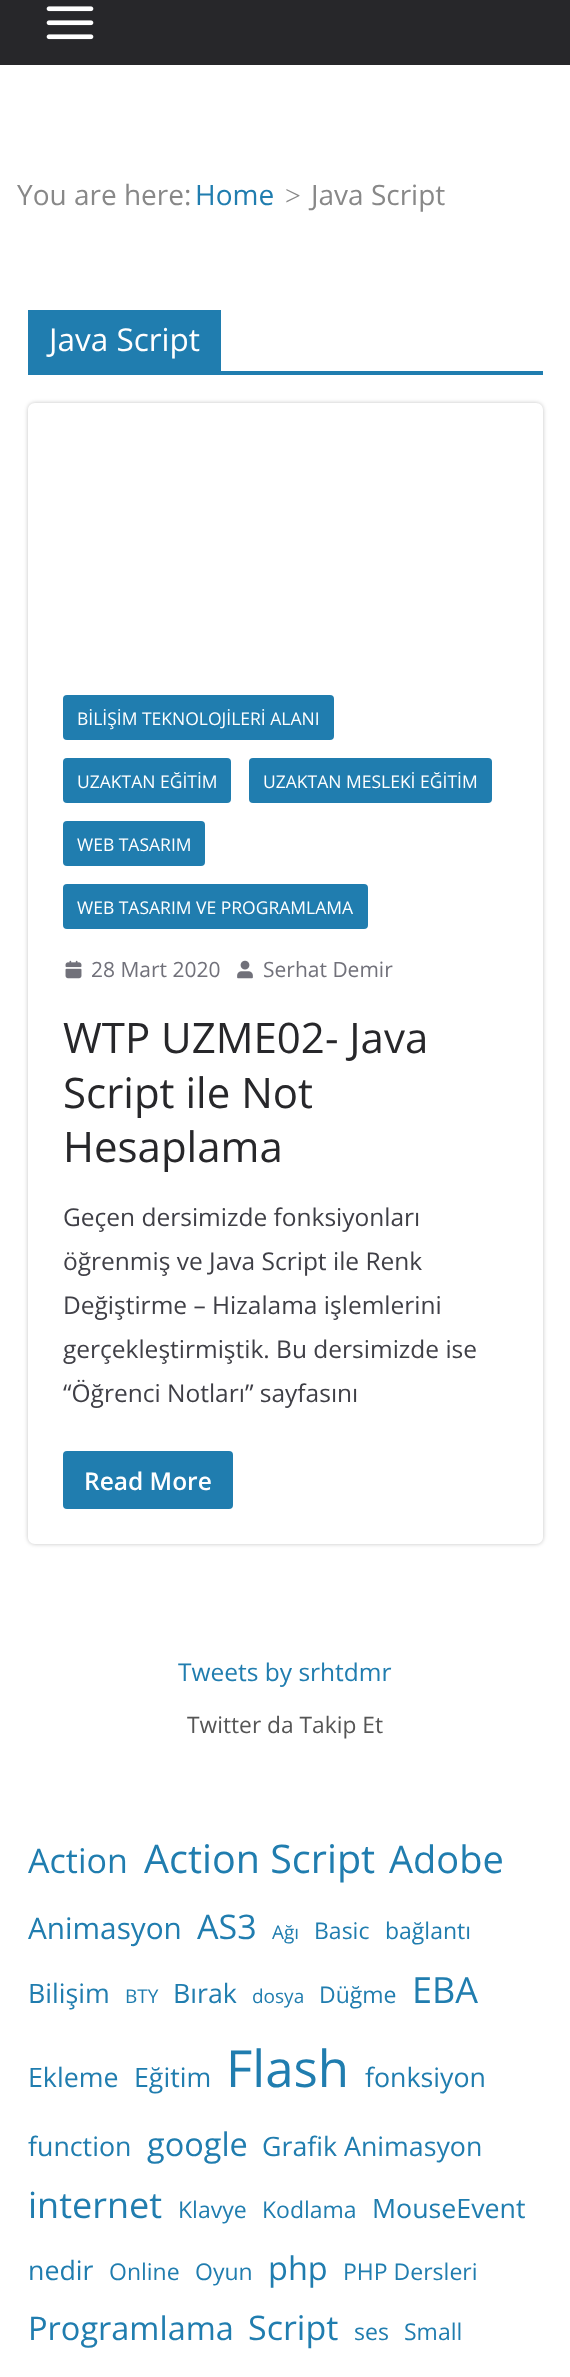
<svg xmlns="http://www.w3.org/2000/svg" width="570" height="2377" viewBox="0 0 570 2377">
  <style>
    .t1 { font: 28px Open Sans; fill: #888; }
    .t2 { font: 28px Open Sans; fill: #207daf; }
    .t3 { font: 28px Liberation Serif; fill: #888; }
    .t4 { font: 31.5px Open Sans; fill: #fff; }
    .t5 { font: 17.5px Open Sans; fill: #fff; }
    .t6 { font: 21px Open Sans; fill: #71717a; }
    .t7 { font: 42px Open Sans; fill: #27272a; }
    .t8 { font: 24.5px Open Sans; fill: #3f3f46; }
    .t9 { font: 600 24.5px Open Sans; fill: #fff; }
    .t10 { font: 24.5px Open Sans; fill: #207daf; }
    .t11 { font: 22.75px Open Sans; fill: #555; }
    .t12 { font: 34px Open Sans; fill: #207daf; }
    .t13 { font: 39.5px Open Sans; fill: #207daf; }
    .t14 { font: 38px Open Sans; fill: #207daf; }
    .t15 { font: 29.75px Open Sans; fill: #207daf; }
    .t16 { font: 19px Open Sans; fill: #207daf; }
    .t17 { font: 23px Open Sans; fill: #207daf; }
    .t18 { font: 26.75px Open Sans; fill: #207daf; }
    .t19 { font: 36px Open Sans; fill: #207daf; }
    .t20 { font: 51px Open Sans; fill: #207daf; }
    .t21 { font: 32.5px Open Sans; fill: #207daf; }
  </style>
  <defs>
    <clipPath id="clip1"><path d="M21 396H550V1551H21ZM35 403H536C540 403 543 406 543 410V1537C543 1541 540 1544 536 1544H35C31 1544 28 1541 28 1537V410C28 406 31 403 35 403Z" clip-rule="evenodd"/></clipPath>
  </defs>
  <rect width="100%" height="100%" fill="#fff"/>
  <rect x="0" y="0" width="570" height="65" fill="#27272a"/>
  <image x="46" y="6" width="48" height="34" href="images/1.png"/>
  <text x="17" y="205" class="t1">You are here:</text>
  <text x="195" y="205" class="t2">Home</text>
  <text x="285" y="205" class="t3">&gt;</text>
  <text x="311" y="205" class="t1">Java Script</text>
  <rect x="28" y="371" width="515" height="4" fill="#207daf"/>
  <rect x="28" y="310" width="193" height="61" fill="#207daf"/>
  <text x="49" y="351" class="t4">Java Script</text>
  <g clip-path="url(#clip1)">
    <rect x="28" y="403" width="515" height="1141" rx="7" fill="#0000003d" filter="blur(2px)"/>
  </g>
  <rect x="63" y="695" width="271" height="45" rx="4" fill="#207daf"/>
  <text x="77" y="725" class="t5">BİLİŞİM TEKNOLOJİLERİ ALANI</text>
  <rect x="63" y="758" width="168" height="45" rx="4" fill="#207daf"/>
  <text x="77" y="788" class="t5">UZAKTAN EĞİTİM</text>
  <rect x="249" y="758" width="243" height="45" rx="4" fill="#207daf"/>
  <text x="263" y="788" class="t5">UZAKTAN MESLEKİ EĞİTİM</text>
  <rect x="63" y="821" width="142" height="45" rx="4" fill="#207daf"/>
  <text x="77" y="851" class="t5">WEB TASARIM</text>
  <rect x="63" y="884" width="305" height="45" rx="4" fill="#207daf"/>
  <text x="77" y="914" class="t5">WEB TASARIM VE PROGRAMLAMA</text>
  <image x="65" y="960" width="17" height="19" href="images/2.png"/>
  <text x="91" y="977" class="t6">28 Mart 2020</text>
  <image x="237" y="960" width="16" height="19" href="images/3.png"/>
  <text x="263" y="977" class="t6">Serhat Demir</text>
  <text x="63" y="1053" class="t7">WTP UZME02- Java</text>
  <text x="63" y="1108" class="t7">Script ile Not</text>
  <text x="63" y="1162" class="t7">Hesaplama</text>
  <text x="63" y="1226" class="t8">Geçen dersimizde fonksiyonları</text>
  <text x="63" y="1270" class="t8">öğrenmiş ve Java Script ile Renk</text>
  <text x="63" y="1314" class="t8">Değiştirme – Hizalama işlemlerini</text>
  <text x="63" y="1358" class="t8">gerçekleştirmiştik. Bu dersimizde ise</text>
  <text x="63" y="1402" class="t8">“Öğrenci Notları” sayfasını</text>
  <rect x="63" y="1451" width="170" height="58" rx="4" fill="#207daf"/>
  <text x="84" y="1490" class="t9">Read More</text>
  <text x="178" y="1681" class="t10">Tweets by srhtdmr</text>
  <text x="187" y="1733" class="t11">Twitter da Takip Et</text>
  <text x="28" y="1873" class="t12">Action</text>
  <text x="144" y="1873" class="t13">Action Script</text>
  <text x="389" y="1873" class="t14">Adobe</text>
  <text x="28" y="1939" class="t15">Animasyon</text>
  <text x="197" y="1939" class="t12">AS3</text>
  <text x="272" y="1939" class="t16">Ağı</text>
  <text x="314" y="1939" class="t17">Basic</text>
  <text x="385" y="1939" class="t17">bağlantı</text>
  <text x="28" y="2003" class="t18">Bilişim</text>
  <text x="125" y="2003" class="t16">BTY</text>
  <text x="173" y="2003" class="t18">Bırak</text>
  <text x="252" y="2003" class="t16">dosya</text>
  <text x="319" y="2003" class="t17">Düğme</text>
  <text x="412" y="2003" class="t19">EBA</text>
  <text x="28" y="2087" class="t18">Ekleme</text>
  <text x="134" y="2087" class="t18">Eğitim</text>
  <text x="226" y="2087" class="t20">Flash</text>
  <text x="365" y="2087" class="t18">fonksiyon</text>
  <text x="28" y="2156" class="t18">function</text>
  <text x="147" y="2156" class="t21">google</text>
  <text x="262" y="2156" class="t18">Grafik Animasyon</text>
  <text x="28" y="2218" class="t19">internet</text>
  <text x="178" y="2218" class="t17">Klavye</text>
  <text x="262" y="2218" class="t17">Kodlama</text>
  <text x="372" y="2218" class="t18">MouseEvent</text>
  <text x="28" y="2280" class="t18">nedir</text>
  <text x="109" y="2280" class="t17">Online</text>
  <text x="195" y="2280" class="t17">Oyun</text>
  <text x="268" y="2280" class="t21">php</text>
  <text x="343" y="2280" class="t17">PHP Dersleri</text>
  <text x="28" y="2340" class="t21">Programlama</text>
  <text x="248" y="2340" class="t12">Script</text>
  <text x="354" y="2340" class="t17">ses</text>
  <text x="404" y="2340" class="t17">Small</text>
</svg>
